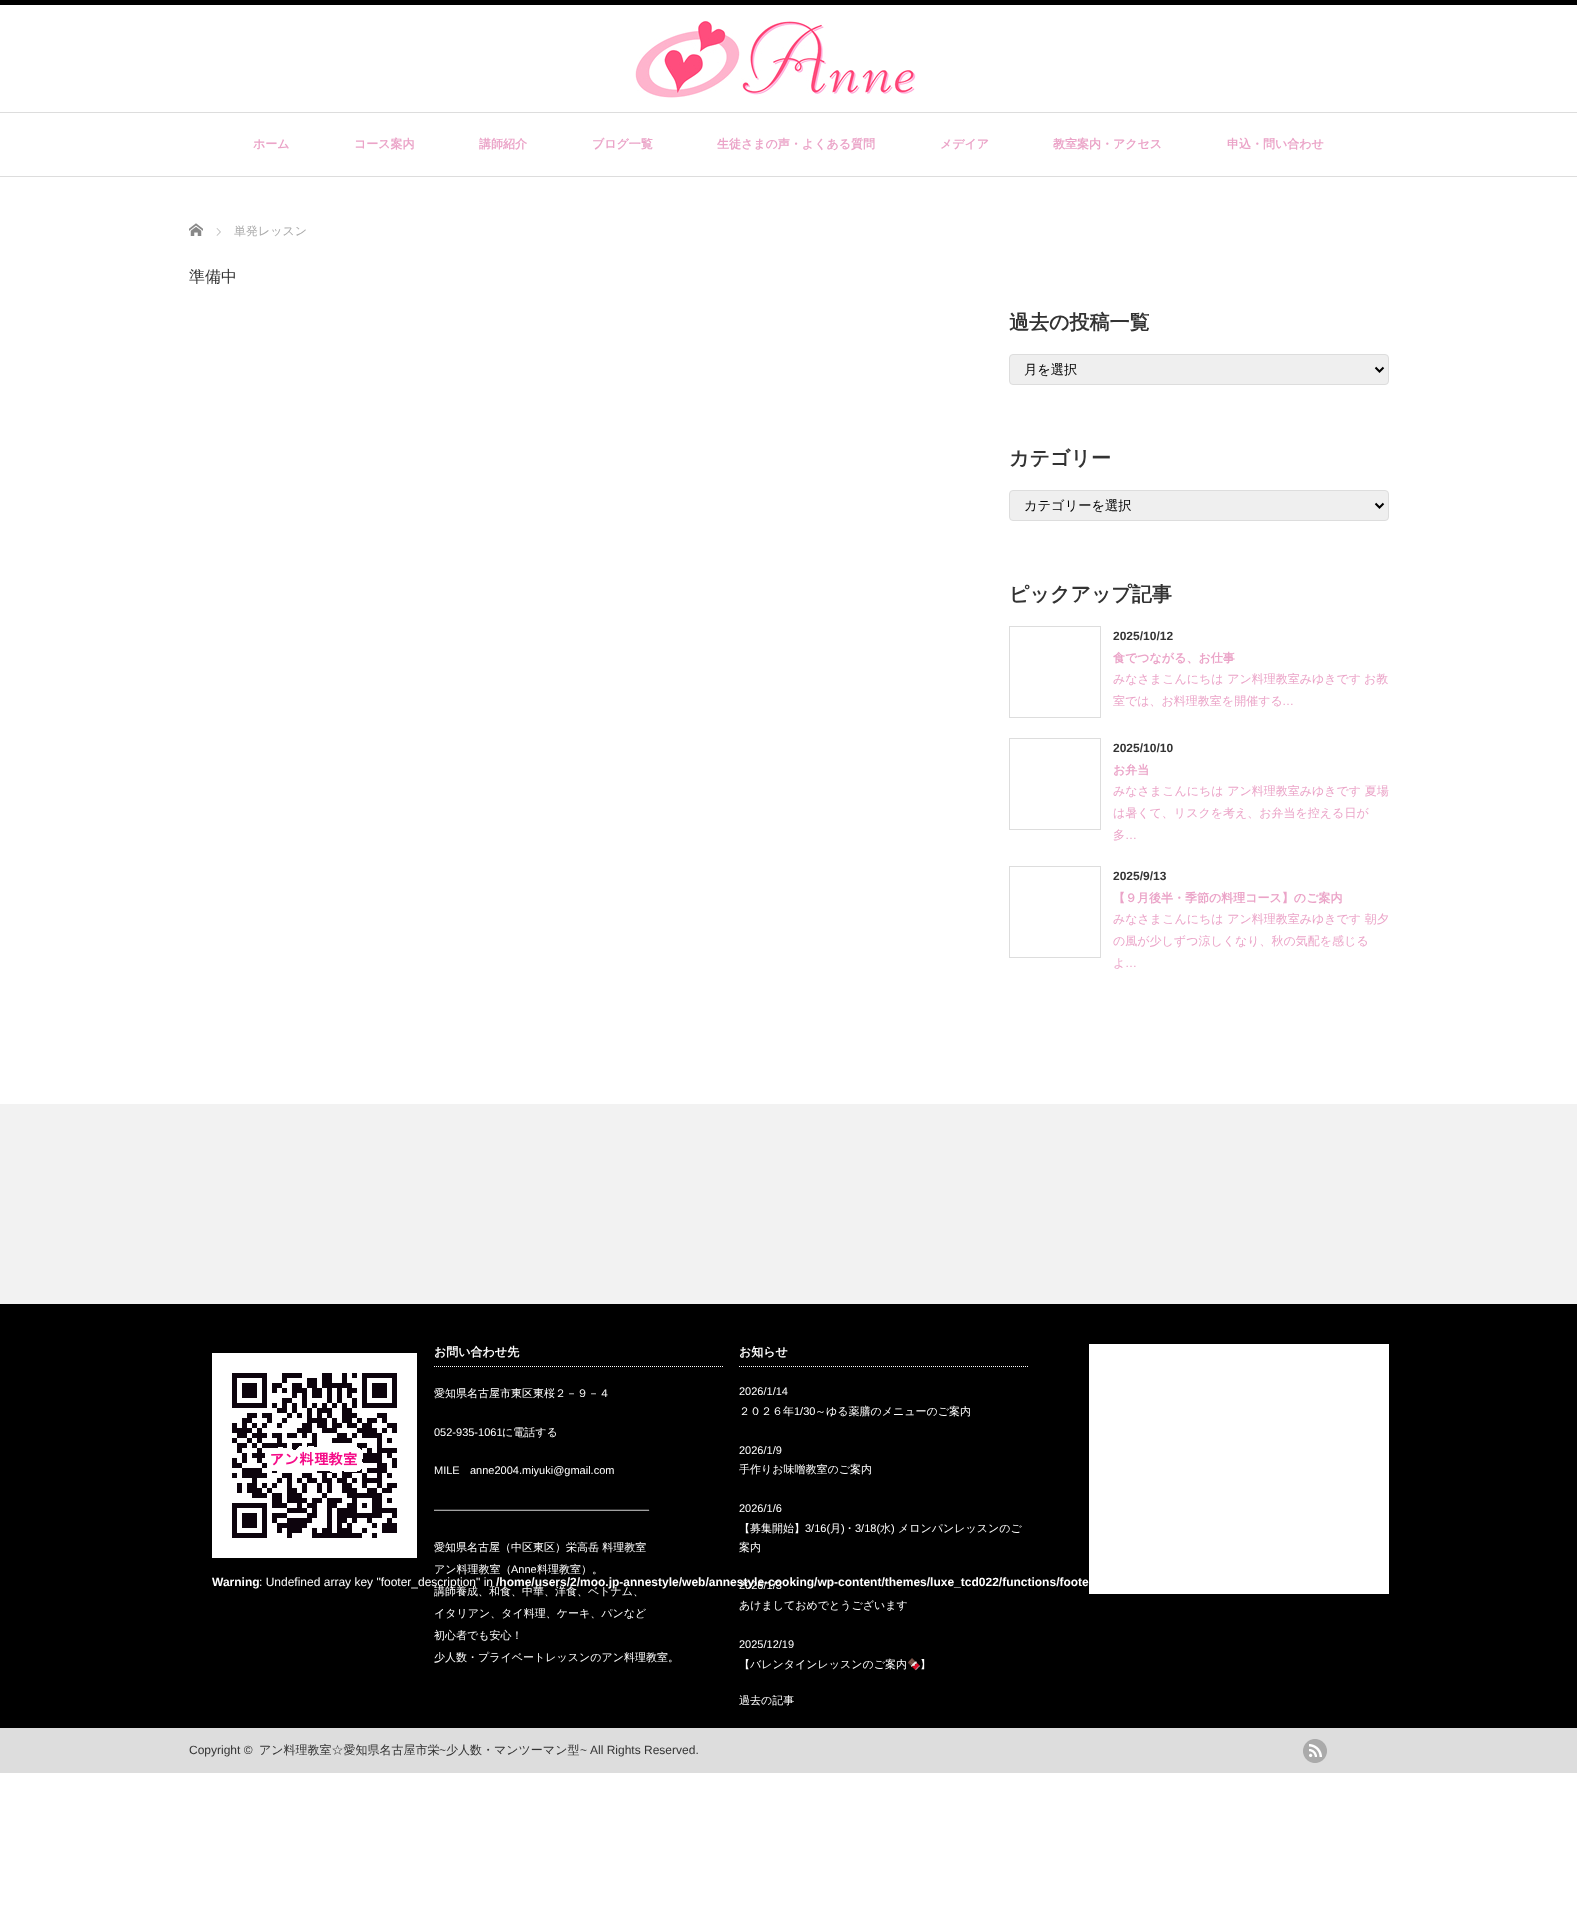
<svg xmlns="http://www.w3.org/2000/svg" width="1577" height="1928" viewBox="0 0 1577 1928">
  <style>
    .t1 { font: bold 12px WenQuanYi Zen Hei; fill: #eba4c8; }
    .t2 { font: 500 12px WenQuanYi Zen Hei; fill: #aaa; }
    .t3 { font: 500 16px WenQuanYi Zen Hei; fill: #333; }
    .t4 { font: bold 20px WenQuanYi Zen Hei; fill: #333; }
    .t5 { font: 500 13.25px WenQuanYi Zen Hei; fill: #000; }
    .t6 { font: bold 12px Liberation Sans; fill: #333; }
    .t7 { font: 500 12px WenQuanYi Zen Hei; fill: #eba4c8; }
    .t8 { font: 12px Liberation Sans; fill: #eba4c8; }
    .t9 { font: bold 12px WenQuanYi Zen Hei; fill: #fff; }
    .t10 { font: 500 11px WenQuanYi Zen Hei; fill: #fff; }
    .t11 { font: 11px Liberation Sans; fill: #fff; }
    .t12 { font: 11px Noto Color Emoji; fill: #fff; }
    .t13 { font: bold 12px Liberation Sans; fill: #fff; }
    .t14 { font: 12px Liberation Sans; fill: #fff; }
    .t15 { font: 12px Liberation Sans; fill: #333; }
    .t16 { font: 500 12px WenQuanYi Zen Hei; fill: #333; }
  </style>
  <rect width="100%" height="100%" fill="#fff"/>
  <rect x="0" y="0" width="1577" height="5" fill="#000"/>
  <rect x="0" y="176" width="1577" height="1" fill="#ddd"/>
  <image x="635" y="21" width="281" height="77" href="images/1.png"/>
  <rect x="0" y="112" width="1577" height="1" fill="#ddd"/>
  <text x="253" y="148" class="t1">ホーム</text>
  <text x="354" y="148" class="t1">コース案内</text>
  <text x="479" y="148" class="t1">講師紹介</text>
  <text x="592" y="148" class="t1">ブログ一覧</text>
  <text x="717" y="148" class="t1">生徒さまの声・よくある質問</text>
  <text x="940" y="148" class="t1">メデイア</text>
  <text x="1053" y="148" class="t1">教室案内・アクセス</text>
  <text x="1227" y="148" class="t1">申込・問い合わせ</text>
  <image x="189" y="223" width="14" height="13" href="images/2.png"/>
  <image x="216" y="228" width="5" height="8" href="images/3.png"/>
  <text x="234" y="235" class="t2">単発レッスン</text>
  <text x="189" y="282" class="t3">準備中</text>
  <text x="1009" y="329" class="t4">過去の投稿一覧</text>
  <rect x="1009.5" y="354.5" width="379" height="30" rx="3.5" fill="#efefef" stroke="#ddd"/>
  <path d="M1375.5 367.5L1379.5 371.5L1383.5 367.5" fill="none" stroke="#000" stroke-width="2"/>
  <text x="1024" y="374" class="t5">月を選択</text>
  <text x="1009" y="465" class="t4">カテゴリー</text>
  <rect x="1009.5" y="490.5" width="379" height="30" rx="3.5" fill="#efefef" stroke="#ddd"/>
  <path d="M1375.5 503.5L1379.5 507.5L1383.5 503.5" fill="none" stroke="#000" stroke-width="2"/>
  <text x="1024" y="510" class="t5">カテゴリーを選択</text>
  <text x="1009" y="601" class="t4">ピックアップ記事</text>
  <rect x="1009.5" y="626.5" width="91" height="91" fill="none" stroke="#ddd"/>
  <text x="1113" y="640" class="t6">2025/10/12</text>
  <text x="1113" y="662" class="t1">食でつながる、お仕事</text>
  <text x="1113" y="683" class="t7">みなさまこんにちは アン料理教室みゆきです</text>
  <text x="1364" y="683" class="t7">お教</text>
  <text x="1113" y="705" class="t7">室では、お料理教室を開催する</text>
  <text x="1282" y="705" class="t8">…</text>
  <rect x="1009.5" y="738.5" width="91" height="91" fill="none" stroke="#ddd"/>
  <text x="1113" y="752" class="t6">2025/10/10</text>
  <text x="1113" y="774" class="t1">お弁当</text>
  <text x="1113" y="795" class="t7">みなさまこんにちは アン料理教室みゆきです 夏場</text>
  <text x="1113" y="817" class="t7">は暑くて、リスクを考え、お弁当を控える日が</text>
  <text x="1113" y="839" class="t7">多</text>
  <text x="1125" y="839" class="t8">…</text>
  <rect x="1009.5" y="866.5" width="91" height="91" fill="none" stroke="#ddd"/>
  <text x="1113" y="880" class="t6">2025/9/13</text>
  <text x="1113" y="902" class="t1">【９月後半・季節の料理コース】のご案内</text>
  <text x="1113" y="923" class="t7">みなさまこんにちは アン料理教室みゆきです 朝夕</text>
  <text x="1113" y="945" class="t7">の風が少しずつ涼しくなり、秋の気配を感じる</text>
  <text x="1113" y="967" class="t7">よ</text>
  <text x="1125" y="967" class="t8">…</text>
  <rect x="0" y="1104" width="1577" height="200" fill="#f2f2f2"/>
  <rect x="0" y="1304" width="1577" height="424" fill="#000"/>
  <path d="M434 1366.5H724" fill="none" stroke="#fff" stroke-dasharray="1 1"/>
  <text x="434" y="1356" class="t9">お問い合わせ先</text>
  <text x="434" y="1397" class="t10">愛知県名古屋市東区東桜２－９－４</text>
  <text x="434" y="1436" class="t11">052-935-1061</text>
  <text x="502" y="1436" class="t10">に電話する</text>
  <text x="434" y="1474" class="t11">MILE</text>
  <text x="470" y="1474" class="t11">anne2004.miyuki@gmail.com</text>
  <text x="434" y="1513" class="t11">———————————————————–</text>
  <text x="434" y="1551" class="t10">愛知県名古屋（中区東区）栄高岳 料理教室</text>
  <text x="434" y="1573" class="t10">アン料理教室（</text>
  <text x="511" y="1573" class="t11">Anne</text>
  <text x="537" y="1573" class="t10">料理教室）。</text>
  <text x="434" y="1595" class="t10">講師養成、和食、中華、洋食、ベトナム、</text>
  <text x="434" y="1617" class="t10">イタリアン、タイ料理、ケーキ、パンなど</text>
  <text x="434" y="1639" class="t10">初心者でも安心！</text>
  <text x="434" y="1661" class="t10">少人数・プライベートレッスンのアン料理教室。</text>
  <path d="M739 1366.5H1029" fill="none" stroke="#fff" stroke-dasharray="1 1"/>
  <text x="739" y="1356" class="t9">お知らせ</text>
  <text x="739" y="1395" class="t11">2026/1/14</text>
  <text x="739" y="1415" class="t10">２０２６年</text>
  <text x="794" y="1415" class="t11">1/30</text>
  <text x="815" y="1415" class="t10">～ゆる薬膳のメニューのご案内</text>
  <text x="739" y="1454" class="t11">2026/1/9</text>
  <text x="739" y="1473" class="t10">手作りお味噌教室のご案内</text>
  <text x="739" y="1512" class="t11">2026/1/6</text>
  <text x="739" y="1532" class="t10">【募集開始】</text>
  <text x="805" y="1532" class="t11">3/16(</text>
  <text x="830" y="1532" class="t10">月</text>
  <text x="841" y="1532" class="t11">)</text>
  <text x="844" y="1532" class="t10">・</text>
  <text x="855" y="1532" class="t11">3/18(</text>
  <text x="880" y="1532" class="t10">水</text>
  <text x="891" y="1532" class="t11">)</text>
  <text x="898" y="1532" class="t10">メロンパンレッスンのご</text>
  <text x="739" y="1551" class="t10">案内</text>
  <text x="739" y="1589" class="t11">2026/1/3</text>
  <text x="739" y="1609" class="t10">あけましておめでとうございます</text>
  <text x="739" y="1648" class="t11">2025/12/19</text>
  <text x="739" y="1668" class="t10">【バレンタインレッスンのご案内</text>
  <text x="907" y="1668" class="t12">🍫</text>
  <text x="920" y="1668" class="t10">】</text>
  <text x="739" y="1704" class="t10">過去の記事</text>
  <rect x="1089" y="1344" width="300" height="250" fill="#fff"/>
  <image x="212" y="1353" width="205" height="205" href="images/4.png"/>
  <text x="212" y="1586" class="t13">Warning</text>
  <text x="259" y="1586" class="t14">: Undefined array key "footer_description" in</text>
  <text x="496" y="1586" class="t13">/home/users/2/moo.jp-annestyle/web/annestyle-cooking/wp-content/themes/luxe_tcd022/functions/foote</text>
  <rect x="0" y="1728" width="1577" height="45" fill="#ddd"/>
  <text x="189" y="1754" class="t15">Copyright ©</text>
  <text x="259" y="1754" class="t16">アン料理教室☆愛知県名古屋市栄</text>
  <text x="439" y="1754" class="t15">~</text>
  <text x="446" y="1754" class="t16">少人数・マンツーマン型</text>
  <text x="580" y="1754" class="t15">~</text>
  <text x="590" y="1754" class="t15">All Rights Reserved.</text>
  <image x="1303" y="1739" width="24" height="24" href="images/5.png"/>
</svg>
